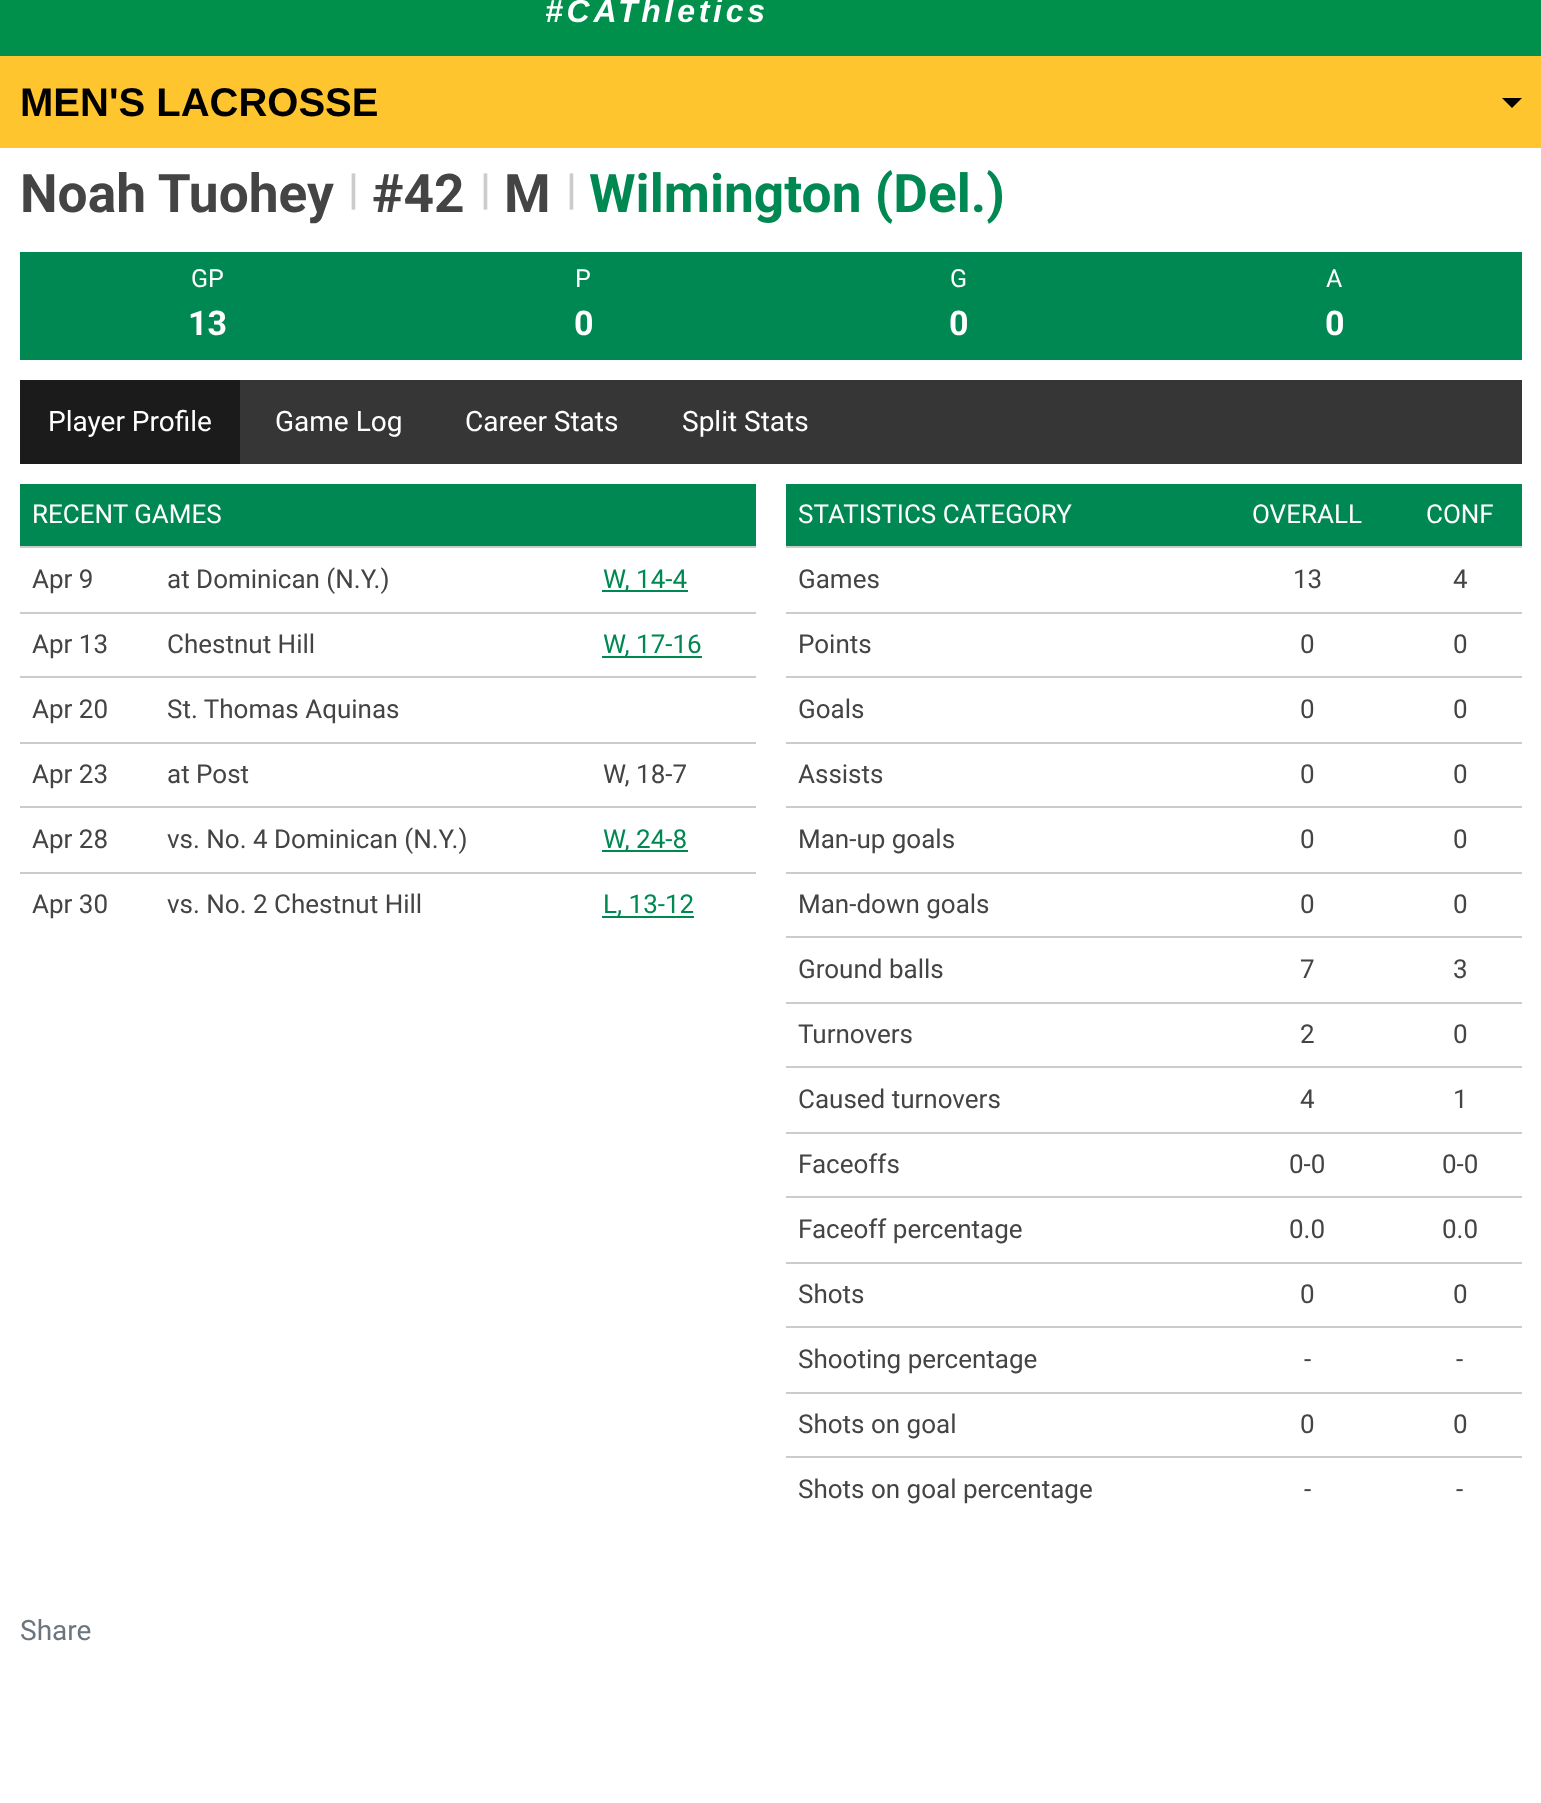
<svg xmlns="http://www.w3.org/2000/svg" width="1541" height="1803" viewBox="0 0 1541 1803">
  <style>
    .t1 { font: italic bold 32px Liberation Sans; letter-spacing: 3.75px; fill: #fff; }
    .t2 { font: bold 40px Liberation Sans; fill: #000; }
    .t3 { font: bold 53.25px Roboto; fill: #444; }
    .t4 { font: bold 43px Roboto; fill: #ccc; }
    .t5 { font: bold 53.25px Roboto; fill: #008852; }
    .t6 { font: 25px Roboto; fill: #fff; }
    .t7 { font: bold 34px Roboto; fill: #fff; }
    .t8 { font: 28px Roboto; fill: #fff; }
    .t9 { font: 26px Roboto; fill: #fff; }
    .t10 { font: 26px Roboto; fill: #444; }
    .t11 { font: 26px Roboto; fill: #008852; }
    .t12 { font: 28px Roboto; fill: #6c757d; }
  </style>
  <rect width="100%" height="100%" fill="#fff"/>
  <rect x="0" y="0" width="1541" height="56" fill="#00904b"/>
  <text x="545" y="22" class="t1">#CAThletics</text>
  <rect x="0" y="56" width="1541" height="92" fill="#ffc52f"/>
  <text x="20" y="116" class="t2">MEN'S LACROSSE</text>
  <path d="M1502 98H1522L1512 108Z" fill="#000"/>
  <text x="20" y="212" class="t3">Noah Tuohey</text>
  <text x="348" y="204" class="t4">|</text>
  <text x="372" y="212" class="t3">#42</text>
  <text x="480" y="204" class="t4">|</text>
  <text x="504" y="212" class="t3">M</text>
  <text x="566" y="204" class="t4">|</text>
  <text x="589" y="212" class="t5">Wilmington (Del.)</text>
  <rect x="20" y="252" width="1502" height="108" fill="#008852"/>
  <text x="191" y="287" class="t6">GP</text>
  <text x="188" y="335" class="t7">13</text>
  <text x="575" y="287" class="t6">P</text>
  <text x="574" y="335" class="t7">0</text>
  <text x="950" y="287" class="t6">G</text>
  <text x="949" y="335" class="t7">0</text>
  <text x="1326" y="287" class="t6">A</text>
  <text x="1325" y="335" class="t7">0</text>
  <rect x="240" y="380" width="1282" height="84" fill="#363636"/>
  <rect x="20" y="380" width="220" height="84" fill="#1b1b1b"/>
  <text x="48" y="431" class="t8">Player Profile</text>
  <text x="275" y="431" class="t8">Game Log</text>
  <text x="465" y="431" class="t8">Career Stats</text>
  <text x="682" y="431" class="t8">Split Stats</text>
  <rect x="20" y="484" width="736" height="62" fill="#008852"/>
  <text x="32" y="523" class="t9">RECENT GAMES</text>
  <text x="32" y="588" class="t10">Apr 9</text>
  <text x="167" y="588" class="t10">at Dominican (N.Y.)</text>
  <rect x="20" y="546" width="736" height="2" fill="#ccc"/>
  <rect x="602" y="590" width="86" height="2" fill="#008852"/>
  <text x="603" y="588" class="t11">W, 14-4</text>
  <text x="32" y="653" class="t10">Apr 13</text>
  <text x="167" y="653" class="t10">Chestnut Hill</text>
  <rect x="20" y="612" width="736" height="2" fill="#ccc"/>
  <rect x="602" y="656" width="100" height="2" fill="#008852"/>
  <text x="603" y="653" class="t11">W, 17-16</text>
  <rect x="20" y="676" width="736" height="2" fill="#ccc"/>
  <text x="32" y="718" class="t10">Apr 20</text>
  <text x="167" y="718" class="t10">St. Thomas Aquinas</text>
  <text x="32" y="783" class="t10">Apr 23</text>
  <text x="167" y="783" class="t10">at Post</text>
  <rect x="20" y="742" width="736" height="2" fill="#ccc"/>
  <text x="603" y="783" class="t10">W, 18-7</text>
  <text x="32" y="848" class="t10">Apr 28</text>
  <text x="167" y="848" class="t10">vs. No. 4 Dominican (N.Y.)</text>
  <rect x="20" y="806" width="736" height="2" fill="#ccc"/>
  <rect x="602" y="850" width="86" height="2" fill="#008852"/>
  <text x="603" y="848" class="t11">W, 24-8</text>
  <text x="32" y="913" class="t10">Apr 30</text>
  <text x="167" y="913" class="t10">vs. No. 2 Chestnut Hill</text>
  <rect x="20" y="872" width="736" height="2" fill="#ccc"/>
  <rect x="602" y="916" width="92" height="2" fill="#008852"/>
  <text x="603" y="913" class="t11">L, 13-12</text>
  <rect x="786" y="484" width="736" height="62" fill="#008852"/>
  <text x="798" y="523" class="t9">STATISTICS CATEGORY</text>
  <text x="1252" y="523" class="t9">OVERALL</text>
  <text x="1426" y="523" class="t9">CONF</text>
  <text x="798" y="588" class="t10">Games</text>
  <text x="1293" y="588" class="t10">13</text>
  <rect x="786" y="546" width="736" height="2" fill="#ccc"/>
  <text x="1453" y="588" class="t10">4</text>
  <text x="798" y="653" class="t10">Points</text>
  <text x="1300" y="653" class="t10">0</text>
  <rect x="786" y="612" width="736" height="2" fill="#ccc"/>
  <text x="1453" y="653" class="t10">0</text>
  <text x="798" y="718" class="t10">Goals</text>
  <text x="1300" y="718" class="t10">0</text>
  <rect x="786" y="676" width="736" height="2" fill="#ccc"/>
  <text x="1453" y="718" class="t10">0</text>
  <text x="798" y="783" class="t10">Assists</text>
  <text x="1300" y="783" class="t10">0</text>
  <rect x="786" y="742" width="736" height="2" fill="#ccc"/>
  <text x="1453" y="783" class="t10">0</text>
  <text x="798" y="848" class="t10">Man-up goals</text>
  <text x="1300" y="848" class="t10">0</text>
  <rect x="786" y="806" width="736" height="2" fill="#ccc"/>
  <text x="1453" y="848" class="t10">0</text>
  <text x="798" y="913" class="t10">Man-down goals</text>
  <text x="1300" y="913" class="t10">0</text>
  <rect x="786" y="872" width="736" height="2" fill="#ccc"/>
  <text x="1453" y="913" class="t10">0</text>
  <text x="798" y="978" class="t10">Ground balls</text>
  <text x="1300" y="978" class="t10">7</text>
  <rect x="786" y="936" width="736" height="2" fill="#ccc"/>
  <text x="1453" y="978" class="t10">3</text>
  <text x="798" y="1043" class="t10">Turnovers</text>
  <text x="1300" y="1043" class="t10">2</text>
  <rect x="786" y="1002" width="736" height="2" fill="#ccc"/>
  <text x="1453" y="1043" class="t10">0</text>
  <text x="798" y="1108" class="t10">Caused turnovers</text>
  <text x="1300" y="1108" class="t10">4</text>
  <rect x="786" y="1066" width="736" height="2" fill="#ccc"/>
  <text x="1453" y="1108" class="t10">1</text>
  <text x="798" y="1173" class="t10">Faceoffs</text>
  <text x="1289" y="1173" class="t10">0-0</text>
  <rect x="786" y="1132" width="736" height="2" fill="#ccc"/>
  <text x="1442" y="1173" class="t10">0-0</text>
  <text x="798" y="1238" class="t10">Faceoff percentage</text>
  <text x="1289" y="1238" class="t10">0.0</text>
  <rect x="786" y="1196" width="736" height="2" fill="#ccc"/>
  <text x="1442" y="1238" class="t10">0.0</text>
  <text x="798" y="1303" class="t10">Shots</text>
  <text x="1300" y="1303" class="t10">0</text>
  <rect x="786" y="1262" width="736" height="2" fill="#ccc"/>
  <text x="1453" y="1303" class="t10">0</text>
  <text x="798" y="1368" class="t10">Shooting percentage</text>
  <text x="1304" y="1368" class="t10">-</text>
  <rect x="786" y="1326" width="736" height="2" fill="#ccc"/>
  <text x="1456" y="1368" class="t10">-</text>
  <text x="798" y="1433" class="t10">Shots on goal</text>
  <text x="1300" y="1433" class="t10">0</text>
  <rect x="786" y="1392" width="736" height="2" fill="#ccc"/>
  <text x="1453" y="1433" class="t10">0</text>
  <text x="798" y="1498" class="t10">Shots on goal percentage</text>
  <text x="1304" y="1498" class="t10">-</text>
  <rect x="786" y="1456" width="736" height="2" fill="#ccc"/>
  <text x="1456" y="1498" class="t10">-</text>
  <text x="20" y="1640" class="t12">Share</text>
</svg>
